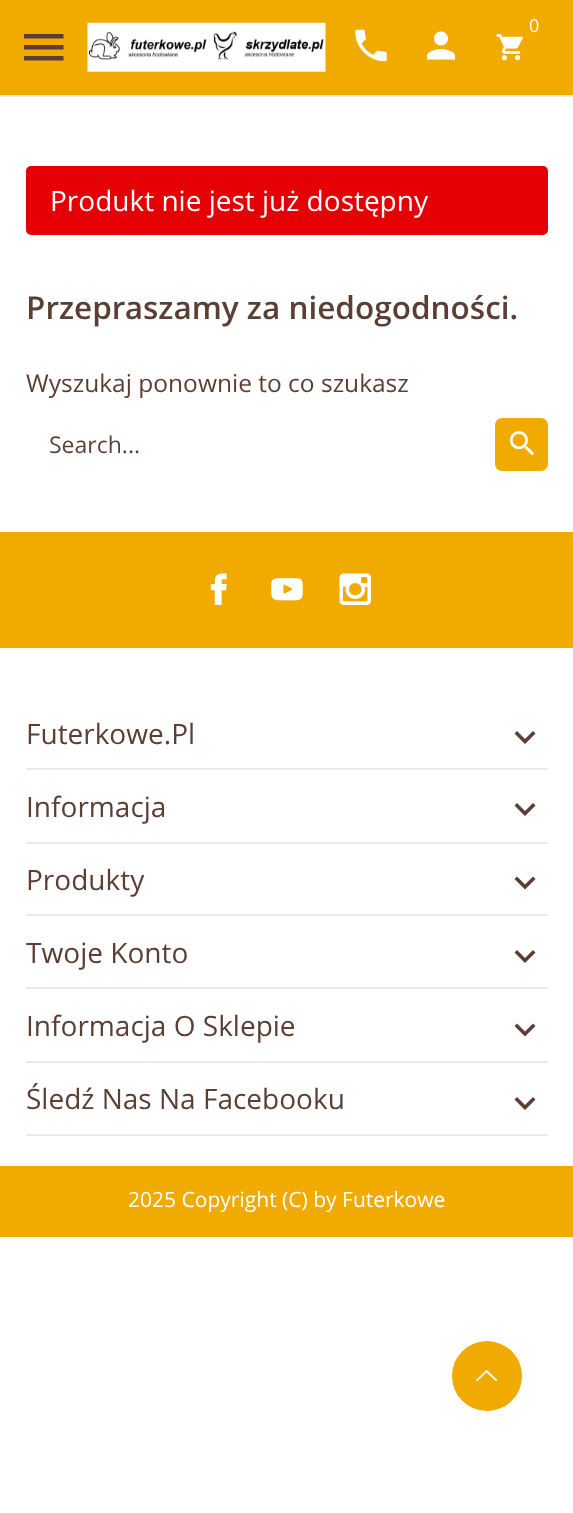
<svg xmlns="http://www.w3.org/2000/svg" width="573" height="1513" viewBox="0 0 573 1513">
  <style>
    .t1 { font: 18px Open Sans; fill: #fff; }
    .t2 { font: 28px Open Sans; fill: #fff; }
    .t3 { font: 600 31.5px Open Sans; fill: #5b3f34; }
    .t4 { font: 24.5px Open Sans; fill: #5b3f34; }
    .t5 { font: 23px Open Sans; fill: #5b3f34; }
    .t6 { font: 28px Open Sans; fill: #5b3f34; }
    .t7 { font: 21px Open Sans; fill: #fff; }
  </style>
  <rect width="100%" height="100%" fill="#fff"/>
  <rect x="0" y="95" width="573" height="2" fill="#e7e7e7"/>
  <rect x="0" y="0" width="573" height="95" fill="#f1aa00"/>
  <path d="M24 34H63.5V38.5H24ZM24 49.5V45H63.5V49.5ZM24 60.5V56H63.5V60.5Z" fill="#5b3f34"/>
  <image x="87" y="22" width="239" height="50" href="images/1.png"/>
  <image x="355" y="29" width="32" height="33" href="images/2.png"/>
  <image x="426" y="31" width="30" height="29" href="images/3.png"/>
  <text x="529" y="32" class="t1">0</text>
  <image x="496" y="34" width="27" height="27" href="images/4.png"/>
  <rect x="27" y="167" width="520" height="67" rx="4" fill="#e50006" stroke="#e50006" stroke-width="2"/>
  <text x="50" y="211" class="t2">Produkt nie jest już dostępny</text>
  <text x="26" y="319" class="t3">Przepraszamy za niedogodności.</text>
  <text x="26" y="392" class="t4">Wyszukaj ponownie to co szukasz</text>
  <text x="49" y="453" class="t5">Search...</text>
  <rect x="495" y="418" width="53" height="53" rx="7" fill="#f1aa00"/>
  <image x="509" y="431" width="25" height="25" href="images/5.png"/>
  <rect x="0" y="532" width="573" height="116" fill="#f1aa00"/>
  <image x="210" y="573" width="17" height="32" href="images/6.png"/>
  <image x="271" y="578" width="32" height="23" href="images/7.png"/>
  <image x="339" y="573" width="32" height="32" href="images/8.png"/>
  <rect x="26" y="768" width="522" height="2" fill="#e9e9e9"/>
  <text x="26" y="744" class="t6">Futerkowe.Pl</text>
  <path d="M517 731L525 739L533 731L535.5 733.5L525 744L514.5 733.5Z" fill="#5b3f34"/>
  <rect x="26" y="842" width="522" height="2" fill="#e9e9e9"/>
  <text x="26" y="817" class="t6">Informacja</text>
  <path d="M517 803L525 811L533 803L535.5 805.5L525 816L514.5 805.5Z" fill="#5b3f34"/>
  <rect x="26" y="914" width="522" height="2" fill="#e9e9e9"/>
  <text x="26" y="890" class="t6">Produkty</text>
  <path d="M517 876.5L525 884.5L533 876.5L535.5 879L525 889.5L514.5 879Z" fill="#5b3f34"/>
  <rect x="26" y="987" width="522" height="2" fill="#e9e9e9"/>
  <text x="26" y="963" class="t6">Twoje Konto</text>
  <path d="M517 950L525 958L533 950L535.5 952.5L525 963L514.5 952.5Z" fill="#5b3f34"/>
  <rect x="26" y="1061" width="522" height="2" fill="#e9e9e9"/>
  <text x="26" y="1036" class="t6">Informacja O Sklepie</text>
  <path d="M517 1023.5L525 1031.5L533 1023.5L535.5 1026L525 1036.5L514.5 1026Z" fill="#5b3f34"/>
  <rect x="26" y="1134" width="522" height="2" fill="#e9e9e9"/>
  <text x="26" y="1109" class="t6">Śledź Nas Na Facebooku</text>
  <path d="M517 1097L525 1105L533 1097L535.5 1099.5L525 1110L514.5 1099.5Z" fill="#5b3f34"/>
  <rect x="0" y="1166" width="573" height="71" fill="#f1aa00"/>
  <text x="128" y="1207" class="t7">2025 Copyright (C) by Futerkowe</text>
  <circle cx="487" cy="1376" r="35" fill="#f1aa01"/>
  <image x="476" y="1370" width="22" height="12" href="images/9.png"/>
</svg>
